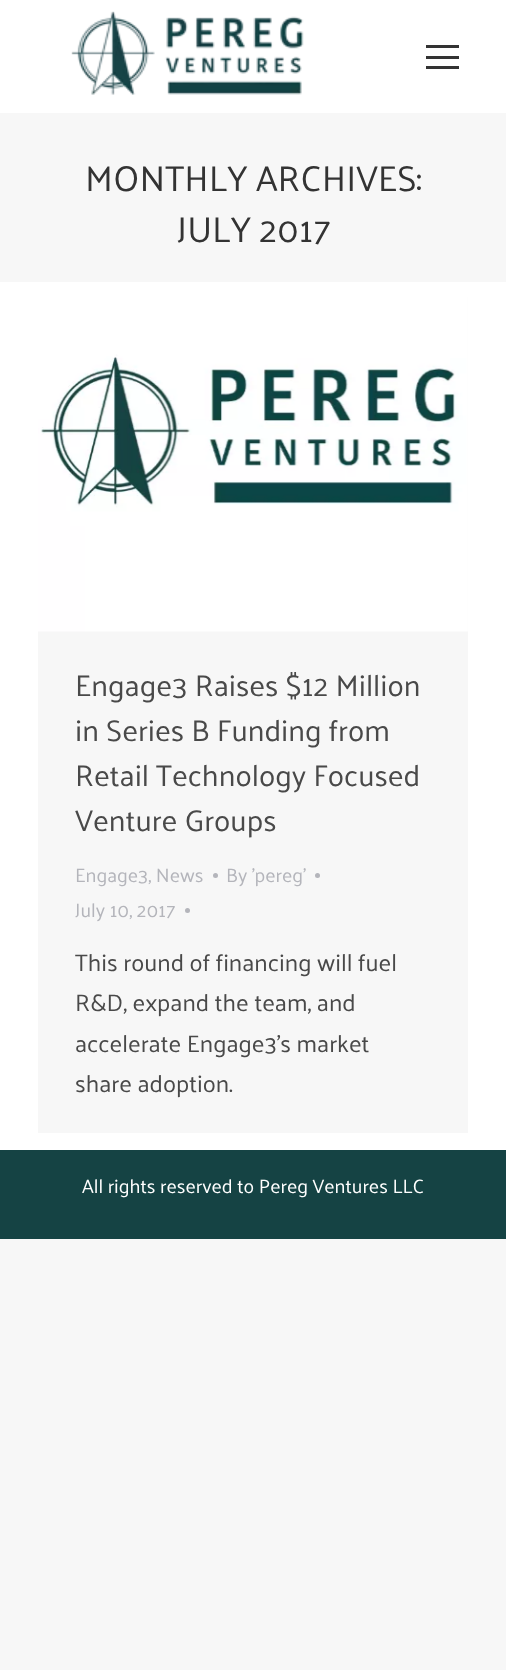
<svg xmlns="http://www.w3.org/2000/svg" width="506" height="1670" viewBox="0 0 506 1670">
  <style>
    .t1 { font: 36px Palanquin; fill: #333; }
    .t2 { font: 30px Palanquin; fill: #494949; }
    .t3 { font: 19.5px Palanquin; fill: #b4b5bb; }
    .t4 { font: 24px Palanquin; fill: #494949; }
    .t5 { font: 19.5px Palanquin; fill: #fff; }
  </style>
  <rect width="100%" height="100%" fill="#f7f7f7"/>
  <rect x="0" y="0" width="506" height="1150" fill="#fff"/>
  <image x="71" y="11" width="233" height="84" href="images/1.png"/>
  <rect x="426" y="45" width="33" height="3" fill="#333"/>
  <rect x="426" y="56" width="33" height="3" fill="#333"/>
  <rect x="426" y="66" width="33" height="3" fill="#333"/>
  <rect x="0" y="113" width="506" height="169" fill="#f7f7f7"/>
  <text x="85" y="191" class="t1">MONTHLY ARCHIVES:</text>
  <text x="177" y="242" class="t1">JULY 2017</text>
  <rect x="38" y="297" width="430" height="836" fill="#f7f7f7"/>
  <image x="38" y="297" width="430" height="335" href="images/2.png"/>
  <text x="75" y="696" class="t2">Engage3 Raises $12 Million</text>
  <text x="75" y="741" class="t2">in Series B Funding from</text>
  <text x="75" y="786" class="t2">Retail Technology Focused</text>
  <text x="75" y="831" class="t2">Venture Groups</text>
  <text x="75" y="882" class="t3">Engage3, News</text>
  <circle cx="215.5" cy="875.5" r="2.5" fill="#b4b5bb"/>
  <text x="226" y="882" class="t3">By 'pereg'</text>
  <circle cx="317.5" cy="875.5" r="2.5" fill="#b4b5bb"/>
  <text x="75" y="917" class="t3">July 10, 2017</text>
  <circle cx="187.5" cy="910.5" r="2.5" fill="#b4b5bb"/>
  <text x="75" y="971" class="t4">This round of financing will fuel</text>
  <text x="75" y="1011" class="t4">R&amp;D, expand the team, and</text>
  <text x="75" y="1052" class="t4">accelerate Engage3’s market</text>
  <text x="75" y="1092" class="t4">share adoption.</text>
  <rect x="0" y="1150" width="506" height="89" fill="#154344"/>
  <text x="82" y="1193" class="t5">All rights reserved to Pereg Ventures LLC</text>
</svg>
